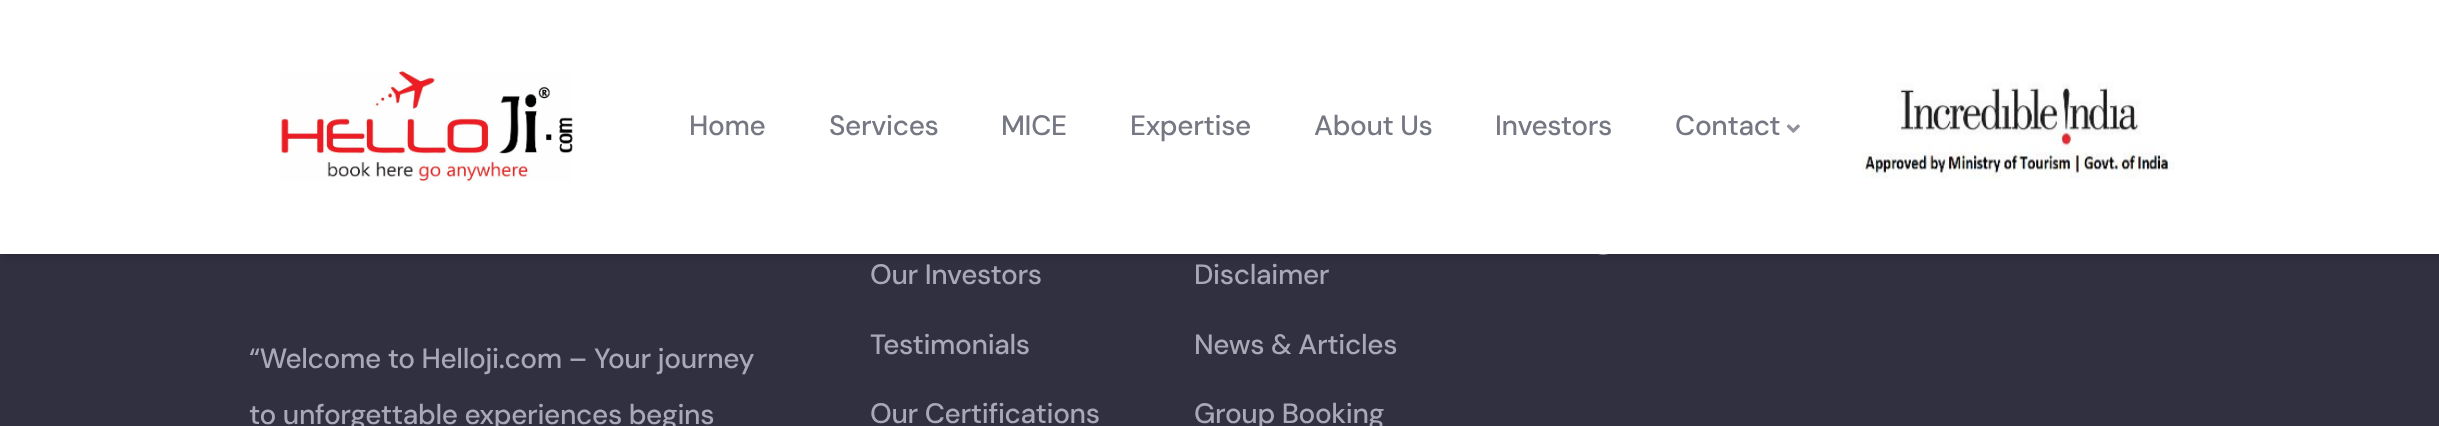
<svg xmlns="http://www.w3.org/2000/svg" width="2439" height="426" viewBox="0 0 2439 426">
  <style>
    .t1 { font: 500 28px DM Sans; letter-spacing: -0.35px; fill: #757783; }
    .t2 { font: 500 28px DM Sans; letter-spacing: -0.35px; fill: #a9a8b6; }
  </style>
  <rect width="100%" height="100%" fill="#313041"/>
  <image x="1598" y="254" width="10" height="1" href="images/4.png"/>
  <rect x="4" y="5" width="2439" height="254" fill="#0000001a" filter="blur(2.5px)"/>
  <rect x="0" y="0" width="2439" height="254" fill="#fff"/>
  <image x="280" y="71" width="293" height="111" href="images/1.png"/>
  <text x="689" y="135" class="t1">Home</text>
  <text x="829" y="135" class="t1">Services</text>
  <text x="1001" y="135" class="t1">MICE</text>
  <text x="1130" y="135" class="t1">Expertise</text>
  <text x="1314" y="135" class="t1">About Us</text>
  <text x="1495" y="135" class="t1">Investors</text>
  <text x="1675" y="135" class="t1">Contact</text>
  <image x="1786" y="124" width="14" height="9" href="images/2.png"/>
  <image x="1862" y="82" width="313" height="97" href="images/3.png"/>
  <text x="249" y="368" class="t2">“Welcome to Helloji.com – Your journey</text>
  <text x="249" y="424" class="t2">to unforgettable experiences begins</text>
  <text x="870" y="284" class="t2">Our Investors</text>
  <text x="870" y="354" class="t2">Testimonials</text>
  <text x="870" y="423" class="t2">Our Certifications</text>
  <text x="1194" y="284" class="t2">Disclaimer</text>
  <text x="1194" y="354" class="t2">News &amp; Articles</text>
  <text x="1194" y="423" class="t2">Group Booking</text>
</svg>
